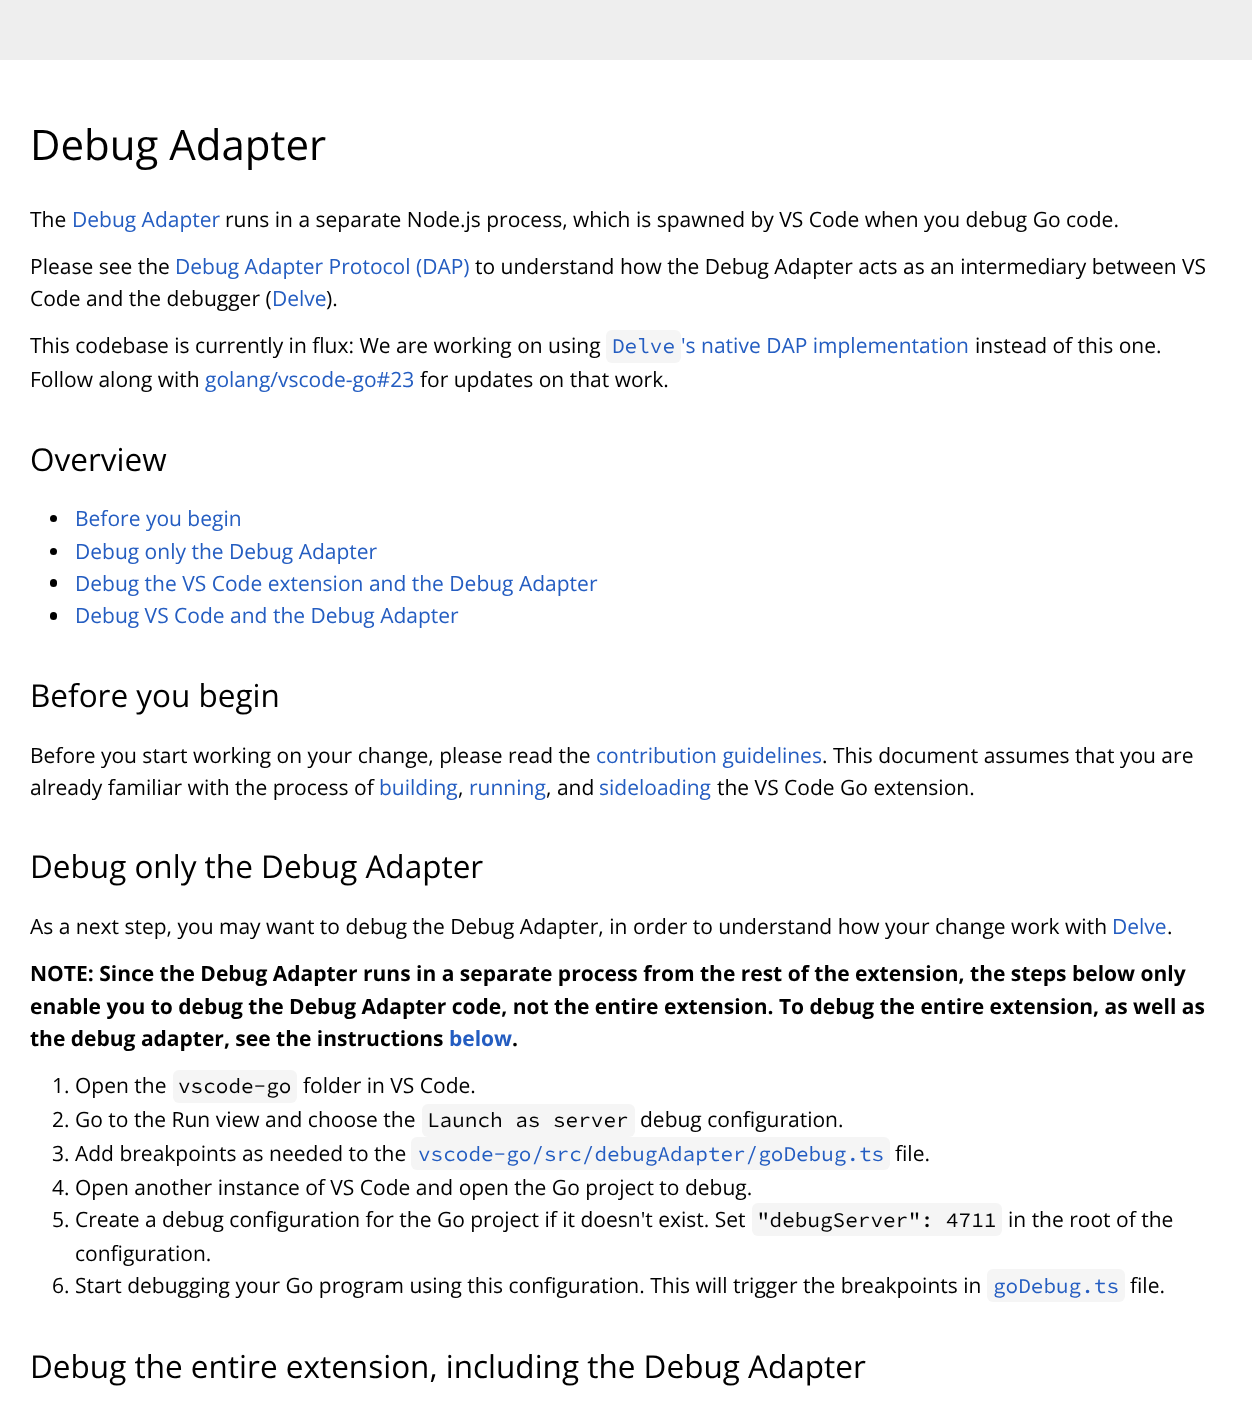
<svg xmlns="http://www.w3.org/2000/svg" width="1252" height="1423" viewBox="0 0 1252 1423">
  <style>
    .t1 { font: 42px Open Sans; fill: #000; }
    .t2 { font: 21px Open Sans; fill: #000; }
    .t3 { font: 21px Open Sans; fill: #245dc1; }
    .t4 { font: 200 21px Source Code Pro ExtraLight; fill: #245dc1; }
    .t5 { font: 31.5px Open Sans; fill: #000; }
    .t6 { font: bold 21px Open Sans; fill: #000; }
    .t7 { font: bold 21px Open Sans; fill: #245dc1; }
    .t8 { font: 200 21px Source Code Pro ExtraLight; fill: #000; }
  </style>
  <rect width="100%" height="100%" fill="#fff"/>
  <rect x="0" y="0" width="1252" height="60" fill="#eee"/>
  <text x="30" y="160" class="t1">Debug Adapter</text>
  <text x="30" y="227" class="t2">The</text>
  <text x="72" y="227" class="t3">Debug Adapter</text>
  <text x="225" y="227" class="t2">runs in a separate Node.js process, which is spawned by VS Code when you debug Go code.</text>
  <text x="30" y="274" class="t2">Please see the</text>
  <text x="175" y="274" class="t3">Debug Adapter Protocol (DAP)</text>
  <text x="475" y="274" class="t2">to understand how the Debug Adapter acts as an intermediary between VS</text>
  <text x="30" y="306" class="t2">Code and the debugger (</text>
  <text x="272" y="306" class="t3">Delve</text>
  <text x="326" y="306" class="t2">).</text>
  <text x="30" y="353" class="t2">This codebase is currently in flux: We are working on using</text>
  <rect x="606" y="330" width="75" height="33" rx="6" fill="#f5f5f5"/>
  <text x="612" y="353" class="t4">Delve</text>
  <text x="681" y="353" class="t3">'s native DAP implementation</text>
  <text x="975" y="353" class="t2">instead of this one.</text>
  <text x="30" y="387" class="t2">Follow along with</text>
  <text x="205" y="387" class="t3">golang/vscode-go#23</text>
  <text x="420" y="387" class="t2">for updates on that work.</text>
  <text x="30" y="471" class="t5">Overview</text>
  <circle cx="53.5" cy="518.5" r="3.5" fill="#000"/>
  <text x="75" y="526" class="t3">Before you begin</text>
  <circle cx="53.5" cy="551.5" r="3.5" fill="#000"/>
  <text x="75" y="559" class="t3">Debug only the Debug Adapter</text>
  <rect x="50" y="579" width="7" height="8" rx="3.5" fill="#000"/>
  <text x="75" y="591" class="t3">Debug the VS Code extension and the Debug Adapter</text>
  <rect x="50" y="612" width="7" height="8" rx="3.5" fill="#000"/>
  <text x="75" y="623" class="t3">Debug VS Code and the Debug Adapter</text>
  <text x="30" y="707" class="t5">Before you begin</text>
  <text x="30" y="763" class="t2">Before you start working on your change, please read the</text>
  <text x="596" y="763" class="t3">contribution guidelines</text>
  <text x="822" y="763" class="t2">. This document assumes that you are</text>
  <text x="30" y="795" class="t2">already familiar with the process of</text>
  <text x="379" y="795" class="t3">building</text>
  <text x="458" y="795" class="t2">,</text>
  <text x="469" y="795" class="t3">running</text>
  <text x="546" y="795" class="t2">, and</text>
  <text x="599" y="795" class="t3">sideloading</text>
  <text x="717" y="795" class="t2">the VS Code Go extension.</text>
  <text x="30" y="878" class="t5">Debug only the Debug Adapter</text>
  <text x="30" y="934" class="t2">As a next step, you may want to debug the Debug Adapter, in order to understand how your change work with</text>
  <text x="1112" y="934" class="t3">Delve</text>
  <text x="1167" y="934" class="t2">.</text>
  <text x="30" y="981" class="t6">NOTE: Since the Debug Adapter runs in a separate process from the rest of the extension, the steps below only</text>
  <text x="30" y="1014" class="t6">enable you to debug the Debug Adapter code, not the entire extension. To debug the entire extension, as well as</text>
  <text x="30" y="1046" class="t6">the debug adapter, see the instructions</text>
  <text x="449" y="1046" class="t7">below</text>
  <text x="512" y="1046" class="t6">.</text>
  <text x="52" y="1093" class="t2">1. Open the</text>
  <rect x="173" y="1070" width="124" height="33" rx="6" fill="#f5f5f5"/>
  <text x="178" y="1093" class="t8">vscode-go</text>
  <text x="303" y="1093" class="t2">folder in VS Code.</text>
  <text x="52" y="1127" class="t2">2. Go to the Run view and choose the</text>
  <rect x="422" y="1104" width="213" height="33" rx="6" fill="#f5f5f5"/>
  <text x="427" y="1127" class="t8">Launch as server</text>
  <text x="640" y="1127" class="t2">debug configuration.</text>
  <text x="52" y="1161" class="t2">3. Add breakpoints as needed to the</text>
  <rect x="411" y="1137" width="479" height="33" rx="6" fill="#f5f5f5"/>
  <text x="418" y="1161" class="t4">vscode-go/src/debugAdapter/goDebug.ts</text>
  <text x="895" y="1161" class="t2">file.</text>
  <text x="52" y="1195" class="t2">4. Open another instance of VS Code and open the Go project to debug.</text>
  <text x="52" y="1227" class="t2">5. Create a debug configuration for the Go project if it doesn't exist. Set</text>
  <rect x="752" y="1203" width="250" height="33" rx="6" fill="#f5f5f5"/>
  <text x="757" y="1227" class="t8">"debugServer": 4711</text>
  <text x="1008" y="1227" class="t2">in the root of the</text>
  <text x="75" y="1261" class="t2">configuration.</text>
  <text x="52" y="1293" class="t2">6. Start debugging your Go program using this configuration. This will trigger the breakpoints in</text>
  <rect x="987" y="1269" width="138" height="33" rx="6" fill="#f5f5f5"/>
  <text x="993" y="1293" class="t4">goDebug.ts</text>
  <text x="1130" y="1293" class="t2">file.</text>
  <text x="30" y="1378" class="t5">Debug the entire extension, including the Debug Adapter</text>
</svg>
